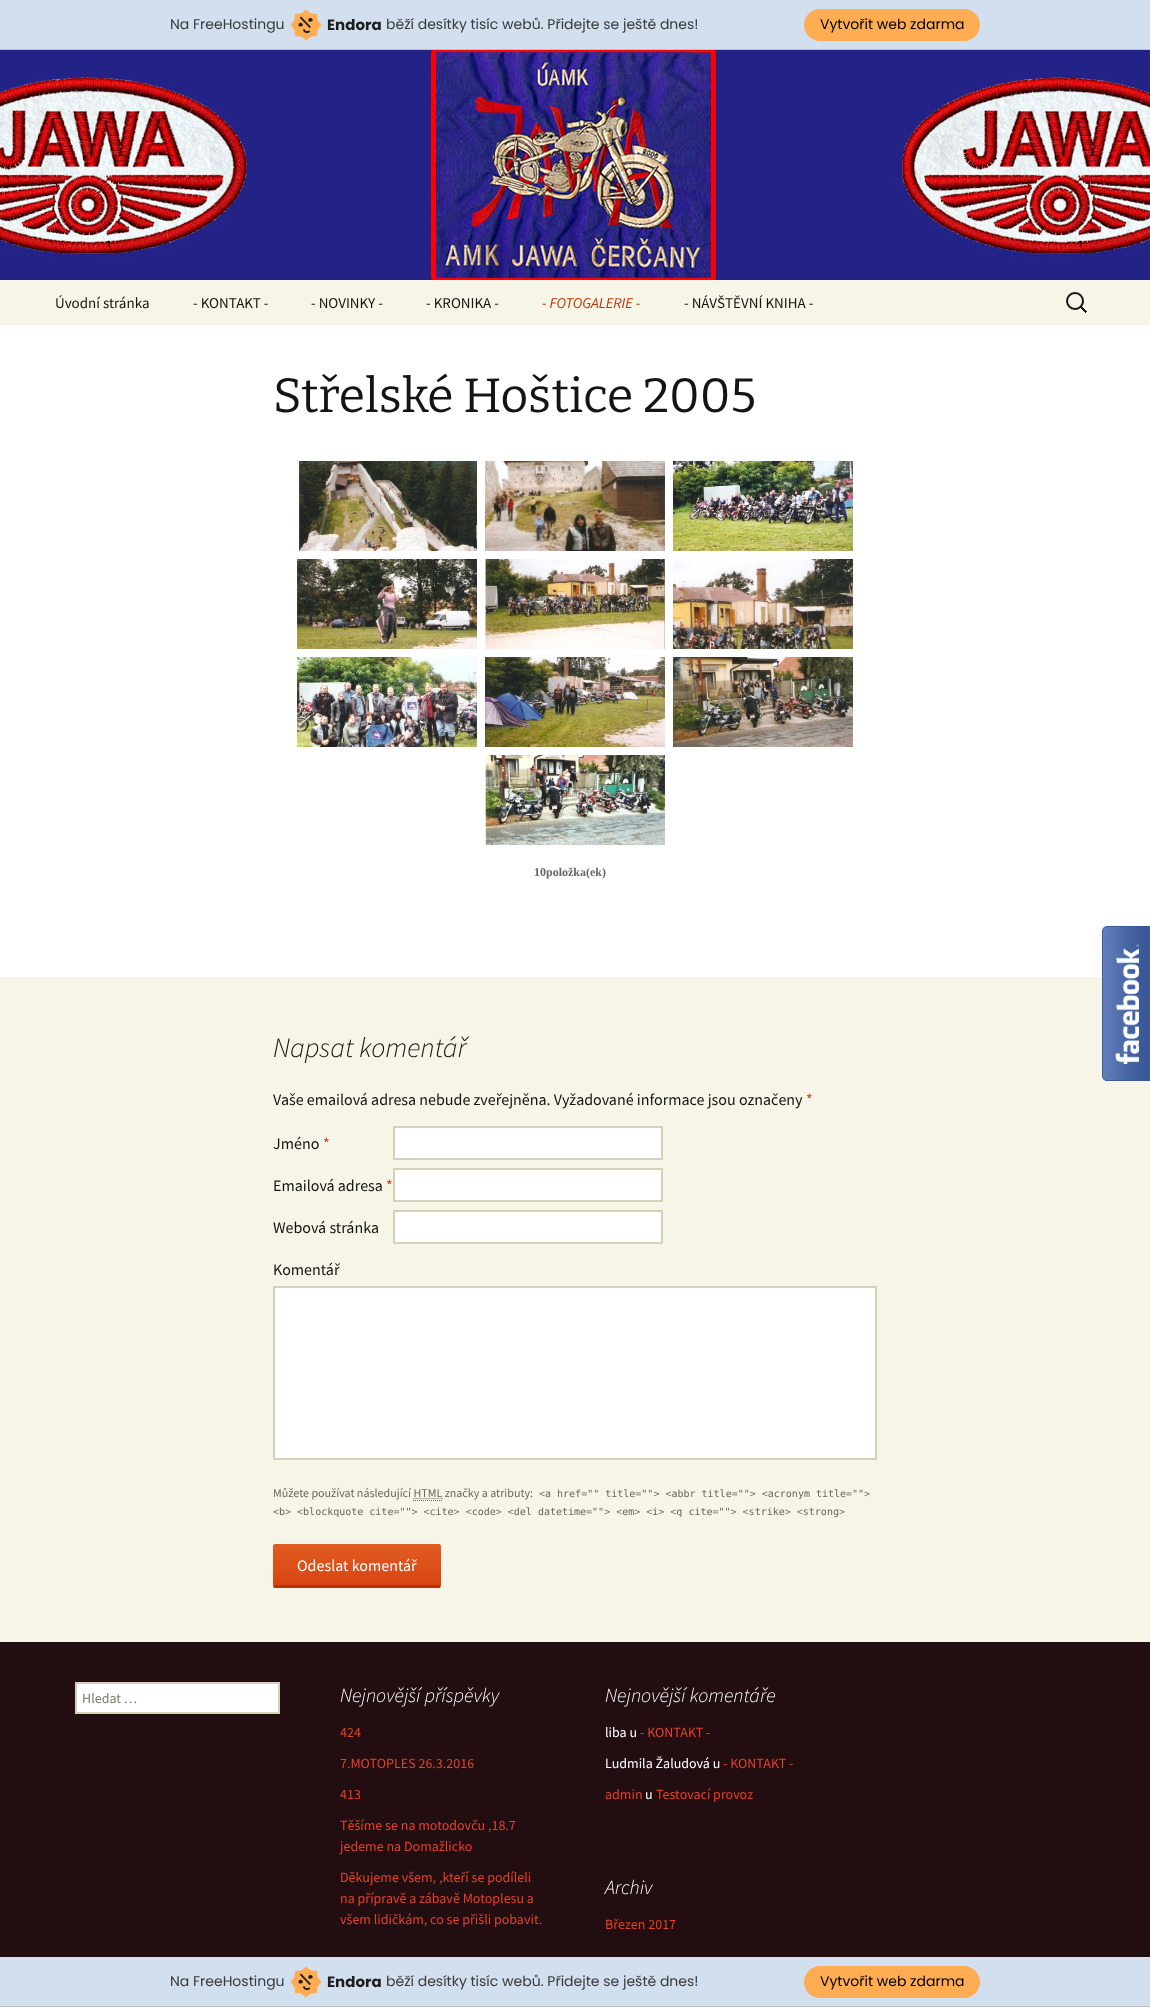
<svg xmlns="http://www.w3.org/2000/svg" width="1150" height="2007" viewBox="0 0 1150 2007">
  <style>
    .t1 { font: 14px Poppins; fill: #3a3a3a; }
    .t2 { font: bold 15px Poppins; fill: #1e1e1e; }
    .t3 { font: 14px Poppins; fill: #000; }
    .t4 { font: 15px Source Sans Pro; fill: #141412; }
    .t5 { font: italic 15px Source Sans Pro; fill: #bc360a; }
    .t6 { font: 48px Bitter; fill: #141412; }
    .t7 { font: bold 12px Liberation Serif; fill: #666; }
    .t8 { font: italic 300 28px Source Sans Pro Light; fill: #141412; }
    .t9 { font: 16px Source Sans Pro; fill: #141412; }
    .t10 { font: 16px Source Sans Pro; fill: #ed331c; }
    .t11 { font: 12px Source Sans Pro; fill: #686758; }
    .t12 { font: 10px DejaVu Sans Mono; fill: #686758; }
    .t13 { font: 16px Source Sans Pro; fill: #fff; }
    .t14 { font: 14px Source Sans Pro; fill: #7d7b6d; }
    .t15 { font: italic 300 20px Source Sans Pro Light; fill: #fff; }
    .t16 { font: 14px Source Sans Pro; fill: #e6402a; }
    .t17 { font: 14px Source Sans Pro; fill: #fff; }
  </style>
  <defs>
    <linearGradient id="g1" gradientUnits="userSpaceOnUse" x1="357" y1="1544" x2="357" y2="1585"><stop offset="0" stop-color="#e05d22"/><stop offset="1" stop-color="#d94412"/></linearGradient>
    <linearGradient id="g2" gradientUnits="userSpaceOnUse" x1="357" y1="1585" x2="357" y2="1626"><stop offset="0" stop-color="#e05d22"/><stop offset="1" stop-color="#d94412"/></linearGradient>
  </defs>
  <rect width="100%" height="100%" fill="#fff"/>
  <rect x="0" y="0" width="1150" height="49" fill="#d2dfef"/>
  <rect x="0" y="49" width="1150" height="1" fill="#bebfc4"/>
  <text x="170" y="29" class="t1">Na FreeHostingu</text>
  <image x="290" y="9" width="32" height="32" href="images/1.png"/>
  <text x="327" y="30" class="t2">Endora</text>
  <text x="386" y="29" class="t1">běží desítky tisíc webů. Přidejte se ještě dnes!</text>
  <rect x="804" y="9" width="176" height="32" rx="16" fill="#ffac52"/>
  <text x="820" y="29" class="t3">Vytvořit web zdarma</text>
  <image x="0" y="50" width="1150" height="230" href="images/2.png"/>
  <rect x="0" y="280" width="1150" height="45" fill="#f7f5e7"/>
  <text x="55" y="308" class="t4">Úvodní stránka</text>
  <text x="193" y="308" class="t4">- KONTAKT -</text>
  <text x="311" y="308" class="t4">- NOVINKY -</text>
  <text x="426" y="308" class="t4">- KRONIKA -</text>
  <text x="542" y="308" class="t5">- FOTOGALERIE -</text>
  <text x="684" y="308" class="t4">- NÁVŠTĚVNÍ KNIHA -</text>
  <image x="1066" y="292" width="21" height="21" href="images/3.png"/>
  <text x="273" y="412" class="t6">Střelské Hoštice 2005</text>
  <image x="297" y="461" width="180" height="90" href="images/4.png"/>
  <image x="485" y="461" width="180" height="90" href="images/5.png"/>
  <image x="673" y="461" width="180" height="90" href="images/6.png"/>
  <image x="297" y="559" width="180" height="90" href="images/7.png"/>
  <image x="485" y="559" width="180" height="90" href="images/8.png"/>
  <image x="673" y="559" width="180" height="90" href="images/9.png"/>
  <image x="297" y="657" width="180" height="90" href="images/10.png"/>
  <image x="485" y="657" width="180" height="90" href="images/11.png"/>
  <image x="673" y="657" width="180" height="90" href="images/12.png"/>
  <image x="485" y="755" width="180" height="90" href="images/13.png"/>
  <text x="534" y="876" class="t7">10položka(ek)</text>
  <rect x="0" y="977" width="1150" height="665" fill="#f7f5e7"/>
  <text x="273" y="1057" class="t8">Napsat komentář</text>
  <text x="273" y="1105" class="t9">Vaše emailová adresa nebude zveřejněna. Vyžadované informace jsou označeny</text>
  <text x="806" y="1105" class="t10">*</text>
  <text x="273" y="1149" class="t9">Jméno</text>
  <text x="323" y="1149" class="t10">*</text>
  <rect x="394" y="1127" width="268" height="32" fill="#fff" stroke="#d4d0ba" stroke-width="2"/>
  <text x="273" y="1191" class="t9">Emailová adresa</text>
  <text x="386" y="1191" class="t10">*</text>
  <rect x="394" y="1169" width="268" height="32" fill="#fff" stroke="#d4d0ba" stroke-width="2"/>
  <text x="273" y="1233" class="t9">Webová stránka</text>
  <rect x="394" y="1211" width="268" height="32" fill="#fff" stroke="#d4d0ba" stroke-width="2"/>
  <text x="273" y="1275" class="t9">Komentář</text>
  <rect x="274" y="1287" width="602" height="172" fill="#fff" stroke="#d4d0ba" stroke-width="2"/>
  <text x="273" y="1497" class="t11">Můžete používat následující HTML značky a atributy:</text>
  <text x="539" y="1497" class="t12">&lt;a href="" title=""&gt; &lt;abbr title=""&gt; &lt;acronym title=""&gt;</text>
  <path d="M413 1500.5H442M413.5 1498.5H442.5" fill="none" stroke="#686758" stroke-dasharray="1 1"/>
  <text x="273" y="1515" class="t12">&lt;b&gt; &lt;blockquote cite=""&gt; &lt;cite&gt; &lt;code&gt; &lt;del datetime=""&gt; &lt;em&gt; &lt;i&gt; &lt;q cite=""&gt; &lt;strike&gt; &lt;strong&gt;</text>
  <path d="M275 1544H439C440 1544 441 1545 441 1546V1585H273V1546C273 1545 274 1544 275 1544Z" fill="url(#g1)"/>
  <path d="M273 1585H441V1586C441 1587 440 1588 439 1588H275C274 1588 273 1587 273 1586Z" fill="url(#g2)"/>
  <rect x="274" y="1585" width="166" height="3" fill="#b93207"/>
  <text x="297" y="1571" class="t13">Odeslat komentář</text>
  <rect x="0" y="1642" width="1150" height="315" fill="#220e10"/>
  <rect x="76" y="1683" width="203" height="30" fill="#fff" stroke="#d4d0ba" stroke-width="2"/>
  <text x="82" y="1703" class="t14">Hledat …</text>
  <text x="340" y="1702" class="t15">Nejnovější příspěvky</text>
  <text x="340" y="1737" class="t16">424</text>
  <text x="340" y="1768" class="t16">7.MOTOPLES 26.3.2016</text>
  <text x="340" y="1799" class="t16">413</text>
  <text x="340" y="1830" class="t16">Těšíme se na motodovču ,18.7</text>
  <text x="340" y="1851" class="t16">jedeme na Domažlicko</text>
  <text x="340" y="1882" class="t16">Děkujeme všem, ,kteří se podíleli</text>
  <text x="340" y="1903" class="t16">na přípravě a zábavě Motoplesu a</text>
  <text x="340" y="1924" class="t16">všem lidičkám, co se přišli pobavit.</text>
  <text x="605" y="1702" class="t15">Nejnovější komentáře</text>
  <text x="605" y="1737" class="t17">liba u</text>
  <text x="640" y="1737" class="t16">- KONTAKT -</text>
  <text x="605" y="1768" class="t17">Ludmila Žaludová u</text>
  <text x="723" y="1768" class="t16">- KONTAKT -</text>
  <text x="605" y="1799" class="t16">admin</text>
  <text x="645" y="1799" class="t17">u</text>
  <text x="656" y="1799" class="t16">Testovací provoz</text>
  <text x="605" y="1894" class="t15">Archiv</text>
  <text x="605" y="1929" class="t16">Březen 2017</text>
  <image x="1102" y="926" width="48" height="155" href="images/14.png"/>
  <rect x="0" y="1957" width="1150" height="49" fill="#d2dfef"/>
  <rect x="0" y="2006" width="1150" height="1" fill="#bebfc4"/>
  <text x="170" y="1986" class="t1">Na FreeHostingu</text>
  <image x="290" y="1966" width="32" height="32" href="images/1.png"/>
  <text x="327" y="1987" class="t2">Endora</text>
  <text x="386" y="1986" class="t1">běží desítky tisíc webů. Přidejte se ještě dnes!</text>
  <rect x="804" y="1966" width="176" height="32" rx="16" fill="#ffac52"/>
  <text x="820" y="1986" class="t3">Vytvořit web zdarma</text>
</svg>
